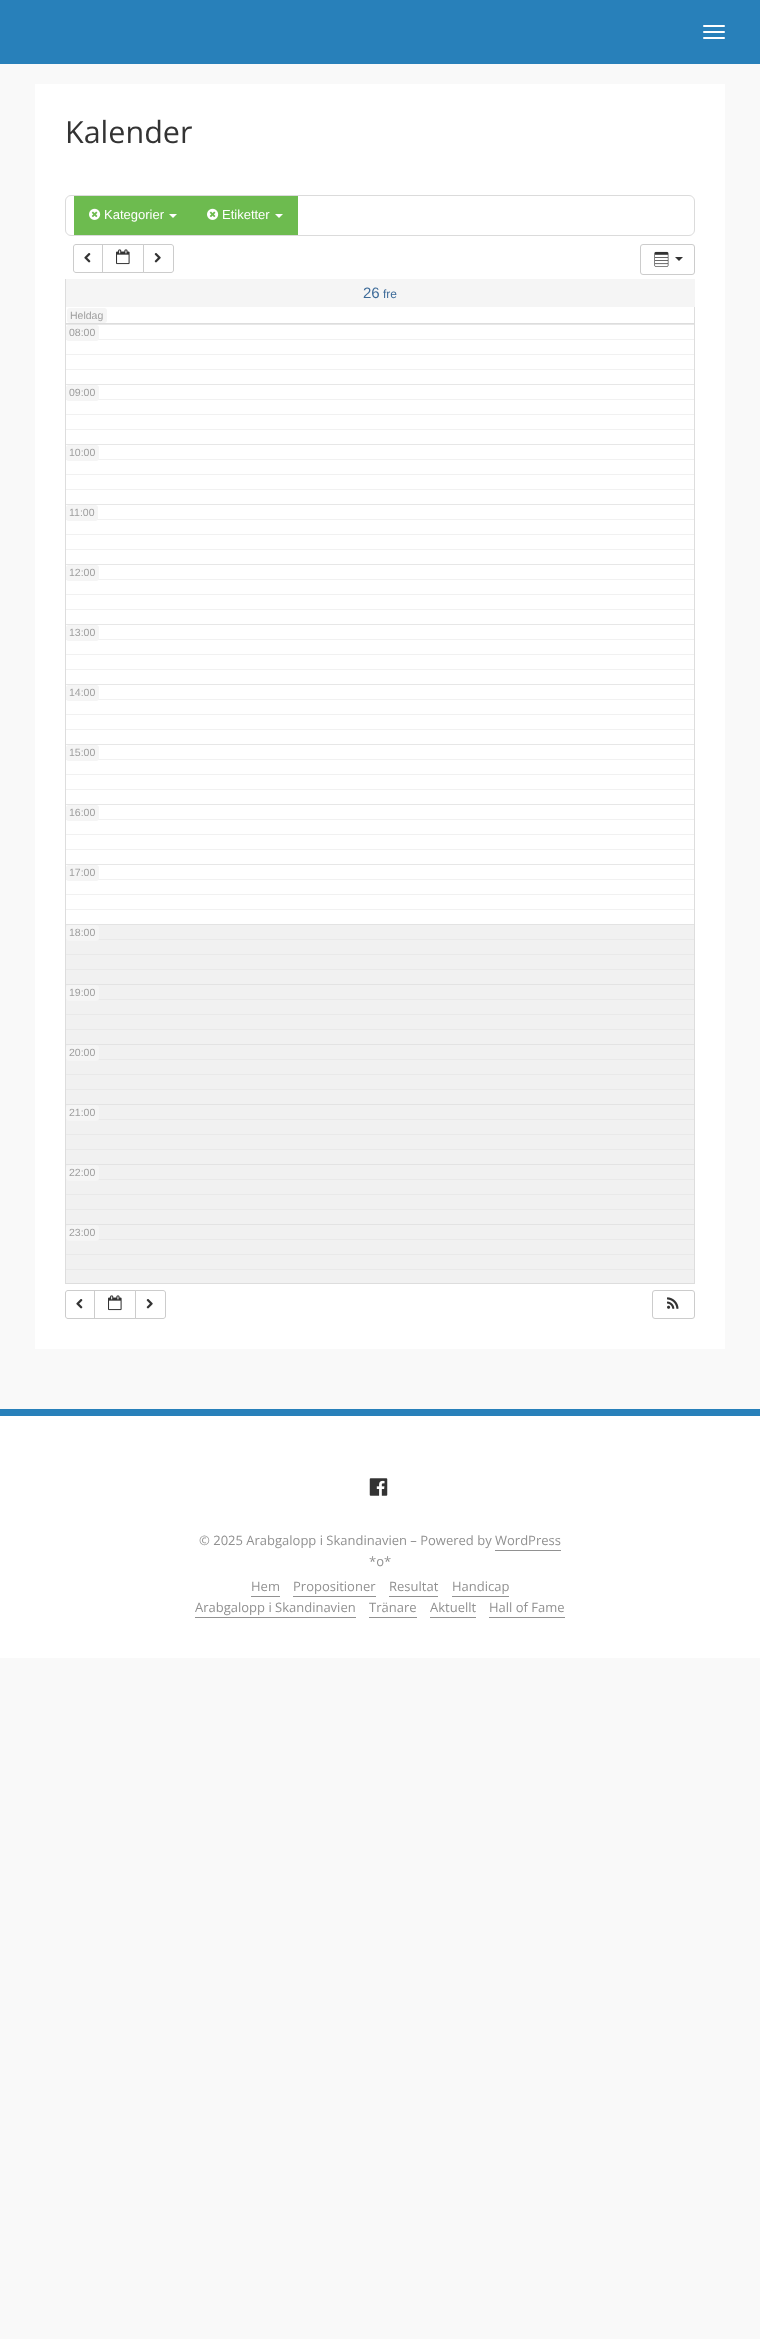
<svg xmlns="http://www.w3.org/2000/svg" width="760" height="2339" viewBox="0 0 760 2339">
  <style>
    .t1 { font: 30.5px Open Sans; fill: #333; }
    .t2 { font: 13px Liberation Sans; fill: #fff; }
    .t3 { font: 15px Liberation Sans; fill: #3d6b99; }
    .t4 { font: 12px Liberation Sans; fill: #3d6b99; }
    .t5 { font: 10.5px Liberation Sans; fill: #9e9e9e; }
    .t6 { font: 13px Open Sans; fill: #919191; }
  </style>
  <rect width="100%" height="100%" fill="#f9f9f9"/>
  <rect x="0" y="0" width="760" height="64" fill="#2880ba"/>
  <rect x="703" y="25" width="22" height="2" rx="1" fill="#fff"/>
  <rect x="703" y="31" width="22" height="2" rx="1" fill="#fff"/>
  <rect x="703" y="37" width="22" height="2" rx="1" fill="#fff"/>
  <rect x="35" y="84" width="690" height="1265" fill="#fff"/>
  <rect x="66" y="1225" width="628" height="58" fill="#f1f1f1"/>
  <rect x="65" y="1269" width="630" height="1" fill="#e9e9e9"/>
  <rect x="65" y="1254" width="630" height="1" fill="#e9e9e9"/>
  <rect x="65" y="1239" width="630" height="1" fill="#e9e9e9"/>
  <rect x="65" y="1224" width="630" height="1" fill="#e3e3e3"/>
  <rect x="66" y="1165" width="628" height="59" fill="#f1f1f1"/>
  <rect x="65" y="1209" width="630" height="1" fill="#e9e9e9"/>
  <rect x="65" y="1194" width="630" height="1" fill="#e9e9e9"/>
  <rect x="65" y="1179" width="630" height="1" fill="#e9e9e9"/>
  <rect x="65" y="1164" width="630" height="1" fill="#e3e3e3"/>
  <rect x="66" y="1105" width="628" height="59" fill="#f1f1f1"/>
  <rect x="65" y="1149" width="630" height="1" fill="#e9e9e9"/>
  <rect x="65" y="1134" width="630" height="1" fill="#e9e9e9"/>
  <rect x="65" y="1119" width="630" height="1" fill="#e9e9e9"/>
  <rect x="65" y="1104" width="630" height="1" fill="#e3e3e3"/>
  <rect x="66" y="1045" width="628" height="59" fill="#f1f1f1"/>
  <rect x="65" y="1089" width="630" height="1" fill="#e9e9e9"/>
  <rect x="65" y="1074" width="630" height="1" fill="#e9e9e9"/>
  <rect x="65" y="1059" width="630" height="1" fill="#e9e9e9"/>
  <rect x="65" y="1044" width="630" height="1" fill="#e3e3e3"/>
  <rect x="66" y="985" width="628" height="59" fill="#f1f1f1"/>
  <rect x="65" y="1029" width="630" height="1" fill="#e9e9e9"/>
  <rect x="65" y="1014" width="630" height="1" fill="#e9e9e9"/>
  <rect x="65" y="999" width="630" height="1" fill="#e9e9e9"/>
  <rect x="65" y="984" width="630" height="1" fill="#e3e3e3"/>
  <rect x="66" y="925" width="628" height="59" fill="#f1f1f1"/>
  <rect x="65" y="969" width="630" height="1" fill="#e9e9e9"/>
  <rect x="65" y="954" width="630" height="1" fill="#e9e9e9"/>
  <rect x="65" y="939" width="630" height="1" fill="#e9e9e9"/>
  <rect x="65" y="924" width="630" height="1" fill="#e3e3e3"/>
  <rect x="65" y="909" width="630" height="1" fill="#f1f1f1"/>
  <rect x="65" y="894" width="630" height="1" fill="#f1f1f1"/>
  <rect x="65" y="879" width="630" height="1" fill="#f1f1f1"/>
  <rect x="65" y="864" width="630" height="1" fill="#e7e7e7"/>
  <rect x="65" y="849" width="630" height="1" fill="#f1f1f1"/>
  <rect x="65" y="834" width="630" height="1" fill="#f1f1f1"/>
  <rect x="65" y="819" width="630" height="1" fill="#f1f1f1"/>
  <rect x="65" y="804" width="630" height="1" fill="#e7e7e7"/>
  <rect x="65" y="789" width="630" height="1" fill="#f1f1f1"/>
  <rect x="65" y="774" width="630" height="1" fill="#f1f1f1"/>
  <rect x="65" y="759" width="630" height="1" fill="#f1f1f1"/>
  <rect x="65" y="744" width="630" height="1" fill="#e7e7e7"/>
  <rect x="65" y="729" width="630" height="1" fill="#f1f1f1"/>
  <rect x="65" y="714" width="630" height="1" fill="#f1f1f1"/>
  <rect x="65" y="699" width="630" height="1" fill="#f1f1f1"/>
  <rect x="65" y="684" width="630" height="1" fill="#e7e7e7"/>
  <rect x="65" y="669" width="630" height="1" fill="#f1f1f1"/>
  <rect x="65" y="654" width="630" height="1" fill="#f1f1f1"/>
  <rect x="65" y="639" width="630" height="1" fill="#f1f1f1"/>
  <rect x="65" y="624" width="630" height="1" fill="#e7e7e7"/>
  <rect x="65" y="609" width="630" height="1" fill="#f1f1f1"/>
  <rect x="65" y="594" width="630" height="1" fill="#f1f1f1"/>
  <rect x="65" y="579" width="630" height="1" fill="#f1f1f1"/>
  <rect x="65" y="564" width="630" height="1" fill="#e7e7e7"/>
  <rect x="65" y="549" width="630" height="1" fill="#f1f1f1"/>
  <rect x="65" y="534" width="630" height="1" fill="#f1f1f1"/>
  <rect x="65" y="519" width="630" height="1" fill="#f1f1f1"/>
  <rect x="65" y="504" width="630" height="1" fill="#e7e7e7"/>
  <rect x="65" y="489" width="630" height="1" fill="#f1f1f1"/>
  <rect x="65" y="474" width="630" height="1" fill="#f1f1f1"/>
  <rect x="65" y="459" width="630" height="1" fill="#f1f1f1"/>
  <rect x="65" y="444" width="630" height="1" fill="#e7e7e7"/>
  <rect x="65" y="429" width="630" height="1" fill="#f1f1f1"/>
  <rect x="65" y="414" width="630" height="1" fill="#f1f1f1"/>
  <rect x="65" y="399" width="630" height="1" fill="#f1f1f1"/>
  <rect x="65" y="384" width="630" height="1" fill="#e7e7e7"/>
  <rect x="65" y="369" width="630" height="1" fill="#f1f1f1"/>
  <rect x="65" y="354" width="630" height="1" fill="#f1f1f1"/>
  <rect x="65" y="339" width="630" height="1" fill="#f1f1f1"/>
  <rect x="65" y="324" width="630" height="1" fill="#e7e7e7"/>
  <text x="65" y="143" class="t1">Kalender</text>
  <rect x="65.5" y="195.5" width="629" height="40" rx="5.5" fill="none" stroke="#dbdbdb"/>
  <rect x="74" y="196" width="224" height="39" fill="#6dbb4f"/>
  <image x="89" y="208" width="12" height="12" href="images/1.png"/>
  <text x="104" y="219" class="t2">Kategorier</text>
  <path d="M169 214H177L173 218Z" fill="#fff"/>
  <image x="207" y="208" width="12" height="12" href="images/1.png"/>
  <text x="222" y="219" class="t2">Etiketter</text>
  <path d="M275 214H283L279 218Z" fill="#fff"/>
  <path d="M76 244.5H102.5V272.5H76C74.5 272.5 73.5 271.5 73.5 270V247C73.5 245.5 74.5 244.5 76 244.5Z" fill="none" stroke="#ccc"/>
  <image x="84" y="253" width="7" height="10" href="images/2.png"/>
  <rect x="102.5" y="244.5" width="41" height="28" fill="none" stroke="#ccc"/>
  <image x="116" y="249" width="14" height="16" href="images/3.png"/>
  <path d="M143.5 244.5H171C172.5 244.5 173.5 245.5 173.5 247V270C173.5 271.5 172.5 272.5 171 272.5H143.5Z" fill="#fff" stroke="#ccc"/>
  <image x="154" y="253" width="7" height="10" href="images/4.png"/>
  <rect x="640.5" y="244.5" width="54" height="30" rx="2.5" fill="none" stroke="#ccc"/>
  <image x="654" y="251" width="15" height="16" href="images/5.png"/>
  <path d="M675 257H683L679 261Z" fill="#333"/>
  <rect x="694" y="307" width="1" height="617" fill="#ddd"/>
  <rect x="65" y="279" width="1" height="645" fill="#ddd"/>
  <rect x="66" y="279" width="629" height="28" fill="#f5f5f5"/>
  <text x="363" y="298" class="t3">26</text>
  <text x="383" y="298" class="t4">fre</text>
  <rect x="65" y="323" width="630" height="1" fill="#ddd"/>
  <rect x="67" y="308" width="40" height="15" rx="3" fill="#f5f5f5"/>
  <text x="70" y="319" class="t5">Heldag</text>
  <rect x="65" y="1283" width="630" height="1" fill="#ddd"/>
  <rect x="694" y="924" width="1" height="359" fill="#ddd"/>
  <rect x="65" y="924" width="1" height="359" fill="#ddd"/>
  <rect x="66" y="325" width="33" height="16" rx="3" fill="#f5f5f5"/>
  <text x="69" y="336" class="t5">08:00</text>
  <rect x="66" y="385" width="33" height="16" rx="3" fill="#f5f5f5"/>
  <text x="69" y="396" class="t5">09:00</text>
  <rect x="66" y="445" width="33" height="16" rx="3" fill="#f5f5f5"/>
  <text x="69" y="456" class="t5">10:00</text>
  <rect x="66" y="505" width="32" height="16" rx="3" fill="#f5f5f5"/>
  <text x="69" y="516" class="t5">11:00</text>
  <rect x="66" y="565" width="33" height="16" rx="3" fill="#f5f5f5"/>
  <text x="69" y="576" class="t5">12:00</text>
  <rect x="66" y="625" width="33" height="16" rx="3" fill="#f5f5f5"/>
  <text x="69" y="636" class="t5">13:00</text>
  <rect x="66" y="685" width="33" height="16" rx="3" fill="#f5f5f5"/>
  <text x="69" y="696" class="t5">14:00</text>
  <rect x="66" y="745" width="33" height="16" rx="3" fill="#f5f5f5"/>
  <text x="69" y="756" class="t5">15:00</text>
  <rect x="66" y="805" width="33" height="16" rx="3" fill="#f5f5f5"/>
  <text x="69" y="816" class="t5">16:00</text>
  <rect x="66" y="865" width="33" height="16" rx="3" fill="#f5f5f5"/>
  <text x="69" y="876" class="t5">17:00</text>
  <rect x="66" y="925" width="33" height="16" rx="3" fill="#f5f5f5"/>
  <text x="69" y="936" class="t5">18:00</text>
  <rect x="66" y="985" width="33" height="16" rx="3" fill="#f5f5f5"/>
  <text x="69" y="996" class="t5">19:00</text>
  <rect x="66" y="1045" width="33" height="16" rx="3" fill="#f5f5f5"/>
  <text x="69" y="1056" class="t5">20:00</text>
  <rect x="66" y="1105" width="33" height="16" rx="3" fill="#f5f5f5"/>
  <text x="69" y="1116" class="t5">21:00</text>
  <rect x="66" y="1165" width="33" height="16" rx="3" fill="#f5f5f5"/>
  <text x="69" y="1176" class="t5">22:00</text>
  <rect x="66" y="1225" width="33" height="16" rx="3" fill="#f5f5f5"/>
  <text x="69" y="1236" class="t5">23:00</text>
  <path d="M68 1290.5H94.5V1318.5H68C66.5 1318.5 65.5 1317.5 65.5 1316V1293C65.5 1291.5 66.5 1290.5 68 1290.5Z" fill="none" stroke="#ccc"/>
  <image x="76" y="1299" width="7" height="10" href="images/2.png"/>
  <rect x="94.5" y="1290.5" width="41" height="28" fill="none" stroke="#ccc"/>
  <image x="108" y="1295" width="14" height="16" href="images/3.png"/>
  <path d="M135.5 1290.5H163C164.5 1290.5 165.5 1291.5 165.5 1293V1316C165.5 1317.5 164.5 1318.5 163 1318.5H135.5Z" fill="#fff" stroke="#ccc"/>
  <image x="146" y="1299" width="7" height="10" href="images/4.png"/>
  <rect x="652.5" y="1290.5" width="42" height="28" rx="2.5" fill="none" stroke="#ccc"/>
  <image x="667" y="1297" width="12" height="12" href="images/6.png"/>
  <rect x="0" y="1416" width="760" height="242" fill="#fff"/>
  <rect x="0" y="1409" width="760" height="7" fill="#2880ba"/>
  <image x="369" y="1478" width="19" height="18" href="images/7.png"/>
  <text x="199" y="1545" class="t6">© 2025 Arabgalopp i Skandinavien – Powered by WordPress</text>
  <rect x="495" y="1550" width="66" height="1" fill="#919191"/>
  <text x="369" y="1566" class="t6">*o*</text>
  <text x="251" y="1591" class="t6">Hem</text>
  <rect x="251" y="1596" width="29" height="1" fill="#919191"/>
  <text x="293" y="1591" class="t6">Propositioner</text>
  <rect x="293" y="1596" width="83" height="1" fill="#919191"/>
  <text x="389" y="1591" class="t6">Resultat</text>
  <rect x="389" y="1596" width="49" height="1" fill="#919191"/>
  <text x="452" y="1591" class="t6">Handicap</text>
  <rect x="452" y="1596" width="57" height="1" fill="#919191"/>
  <text x="195" y="1612" class="t6">Arabgalopp i Skandinavien</text>
  <rect x="195" y="1617" width="161" height="1" fill="#919191"/>
  <text x="369" y="1612" class="t6">Tränare</text>
  <rect x="369" y="1617" width="48" height="1" fill="#919191"/>
  <text x="430" y="1612" class="t6">Aktuellt</text>
  <rect x="430" y="1617" width="46" height="1" fill="#919191"/>
  <text x="489" y="1612" class="t6">Hall of Fame</text>
  <rect x="489" y="1617" width="76" height="1" fill="#919191"/>
</svg>
